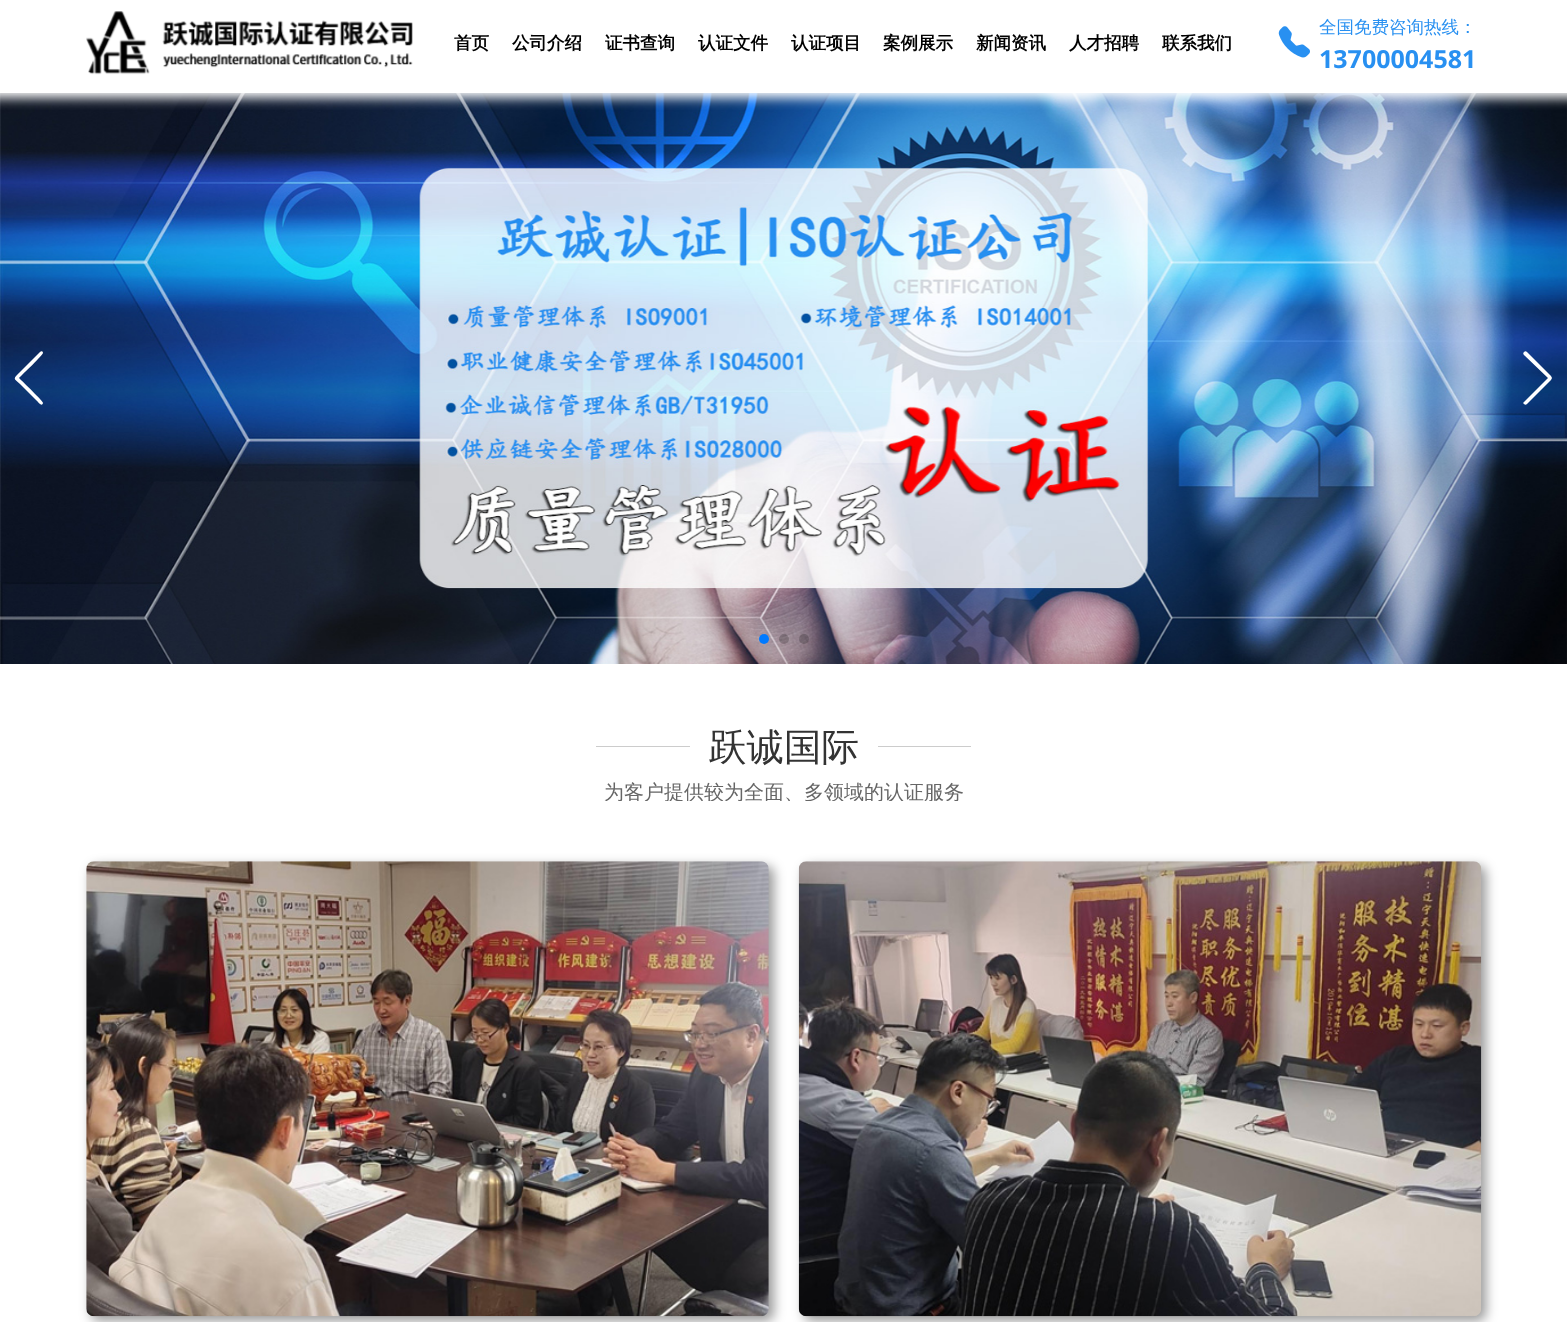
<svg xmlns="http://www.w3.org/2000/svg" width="1567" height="1322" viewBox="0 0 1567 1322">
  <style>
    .t1 { font: bold 17.5px WenQuanYi Zen Hei; fill: #000; }
    .t2 { font: 500 17.5px WenQuanYi Zen Hei; fill: #2890f1; }
    .t3 { font: bold 25px Noto Sans; fill: #2890f1; }
    .t4 { font: 500 37.5px WenQuanYi Zen Hei; fill: #333; }
    .t5 { font: 500 20px WenQuanYi Zen Hei; fill: #666; }
  </style>
  <defs>
    <clipPath id="clip1"><rect x="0" y="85" width="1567" height="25"/></clipPath>
    <clipPath id="clip2"><rect x="86" y="724" width="1395" height="77"/></clipPath>
  </defs>
  <rect width="100%" height="100%" fill="#fff"/>
  <image x="0" y="93" width="1567" height="571" href="images/3.png"/>
  <g clip-path="url(#clip1)">
    <rect x="-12" y="-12" width="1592" height="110" fill="#fff" filter="blur(6px)"/>
  </g>
  <image x="86" y="11" width="327" height="64" href="images/1.png"/>
  <text x="454" y="49" class="t1">首页</text>
  <text x="512" y="49" class="t1">公司介绍</text>
  <text x="605" y="49" class="t1">证书查询</text>
  <text x="698" y="49" class="t1">认证文件</text>
  <text x="791" y="49" class="t1">认证项目</text>
  <text x="883" y="49" class="t1">案例展示</text>
  <text x="976" y="49" class="t1">新闻资讯</text>
  <text x="1069" y="49" class="t1">人才招聘</text>
  <text x="1162" y="49" class="t1">联系我们</text>
  <image x="1278" y="26" width="32" height="32" href="images/2.png"/>
  <text x="1319" y="33" class="t2">全国免费咨询热线：</text>
  <text x="1319" y="68" class="t3">13700004581</text>
  <path d="M40 352C41 351 43 351 43 353C43 355 22 375 19 378C22 381 44 402 43 403C42 407 39 403 36 400L20 384C13 378 13 379 20 372Z" fill="#fff"/>
  <path d="M1524 404C1523 403 1523 403 1524 402L1548 378L1524 355C1523 354 1523 353 1524 352C1525 351 1526 351 1527 352L1551 376L1552 378L1551 380L1527 404C1526 405 1525 405 1524 404Z" fill="#fff"/>
  <circle cx="764" cy="639" r="5" fill="#007aff"/>
  <circle cx="784" cy="639" r="5" fill="#00000033"/>
  <circle cx="804" cy="639" r="5" fill="#00000033"/>
  <rect x="596" y="746" width="94" height="1" fill="#ccc"/>
  <text x="709" y="760" class="t4">跃诚国际</text>
  <rect x="878" y="746" width="93" height="1" fill="#ccc"/>
  <g clip-path="url(#clip2)">
    <text x="604" y="799" class="t5">为客户提供较为全面、多领域的认证服务</text>
  </g>
  <rect x="91" y="866" width="683" height="455" rx="8" fill="#00000066" filter="blur(6px)"/>
  <image x="86" y="861" width="683" height="456" href="images/4.png"/>
  <rect x="804" y="866" width="682" height="455" rx="8" fill="#00000066" filter="blur(6px)"/>
  <image x="798" y="861" width="684" height="456" href="images/5.png"/>
</svg>
